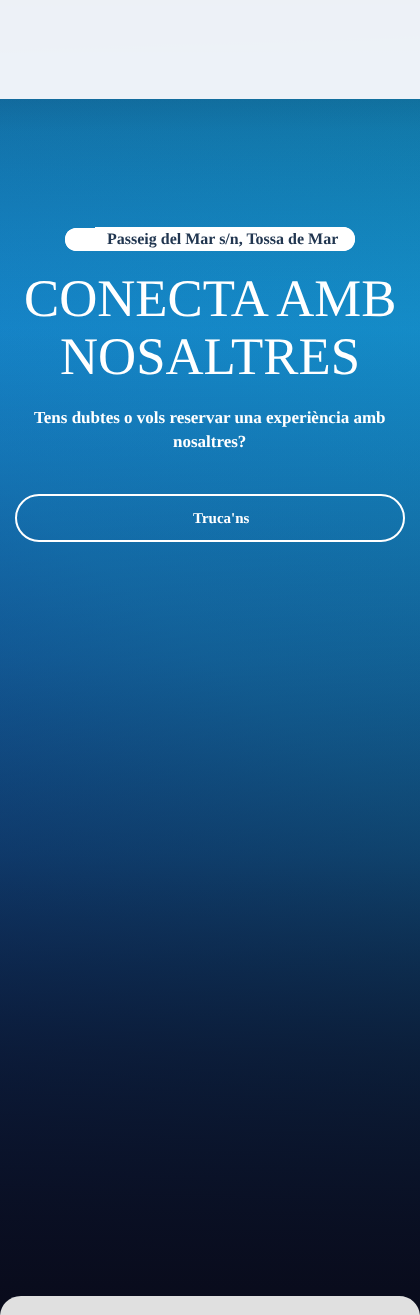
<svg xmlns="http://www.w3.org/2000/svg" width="420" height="1315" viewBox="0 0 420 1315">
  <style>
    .t1 { font: bold 16px Liberation Serif; fill: #213650; }
    .t2 { font: 52.75px Liberation Serif; fill: #fff; }
    .t3 { font: bold 17px Liberation Serif; fill: #fff; }
    .t4 { font: bold 15px Liberation Serif; fill: #fff; }
  </style>
  <defs>
    <linearGradient id="g1" gradientUnits="userSpaceOnUse" x1="-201" y1="1147" x2="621" y2="168"><stop offset="0" stop-color="#1865e0"/><stop offset="0.5" stop-color="#199ef2"/><stop offset="1" stop-color="#16b6f5"/></linearGradient>
    <linearGradient id="g2" gradientUnits="userSpaceOnUse" x1="210" y1="0" x2="210" y2="1315"><stop offset="0" stop-color="#090b1b" stop-opacity="0.6"/><stop offset="0.1" stop-color="#090b1b" stop-opacity="0.3"/><stop offset="0.25" stop-color="#090b1b" stop-opacity="0.05"/><stop offset="0.65" stop-color="#090b1b" stop-opacity="0.05"/><stop offset="0.8" stop-color="#090b1b" stop-opacity="0.25"/><stop offset="0.9" stop-color="#090b1b" stop-opacity="0.4"/><stop offset="1" stop-color="#090b1b" stop-opacity="0.6"/></linearGradient>
    <linearGradient id="g3" gradientUnits="userSpaceOnUse" x1="210" y1="1315" x2="210" y2="0"><stop offset="0" stop-color="#090b1b"/><stop offset="0.2" stop-color="#090b1b" stop-opacity="0.8"/><stop offset="0.35" stop-color="#090b1b" stop-opacity="0.6"/><stop offset="0.5" stop-color="#090b1b" stop-opacity="0.4"/><stop offset="0.65" stop-color="#090b1b" stop-opacity="0.25"/><stop offset="0.8" stop-color="#090b1b" stop-opacity="0.12"/><stop offset="0.9" stop-color="#090b1b" stop-opacity="0.05"/><stop offset="1" stop-color="#090b1b" stop-opacity="0"/></linearGradient>
  </defs>
  <rect width="100%" height="100%" fill="#fff"/>
  <rect x="0" y="0" width="420" height="1307" fill="url(#g1)"/>
  <rect x="0" y="0" width="420" height="1307" fill="url(#g2)"/>
  <rect x="0" y="67" width="420" height="1248" fill="url(#g3)"/>
  <rect x="0" y="0" width="420" height="99" fill="#f7f8fcf5"/>
  <path d="M95 227H343C349.5 227 355 232.5 355 239C355 245.5 349.5 251 343 251H95Z" fill="#fff"/>
  <path d="M95 227H343C350 227 355 232 355 239C355 246 350 251 343 251H95ZM95 228H343C349 228 354 233 354 239C354 245 349 250 343 250H95Z" fill="#fff" fill-rule="evenodd"/>
  <text x="107" y="244" class="t1">Passeig del Mar s/n, Tossa de Mar</text>
  <path d="M76.5 228H95V251H76.5C70 251 65 246 65 239.5C65 233 70 228 76.5 228Z" fill="#fff"/>
  <path d="M76.5 228H95V251H76.5C70 251 65 246 65 239.5C65 233 70 228 76.5 228ZM76.5 229H95V250H76.5C70.5 250 66 245.5 66 239.5C66 233.5 70.5 229 76.5 229Z" fill="#fff" fill-rule="evenodd"/>
  <text x="24" y="316" class="t2">CONECTA AMB</text>
  <text x="60" y="374" class="t2">NOSALTRES</text>
  <text x="34" y="423" class="t3">Tens dubtes o vols reservar una experiència amb</text>
  <text x="173" y="447" class="t3">nosaltres?</text>
  <rect x="16" y="495" width="388" height="46" rx="23" fill="none" stroke="#fff" stroke-width="2"/>
  <text x="193" y="523" class="t4">Truca'ns</text>
  <path d="M0 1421V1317C0 1311 2 1306 6 1302C10 1298 15 1296 21 1296H399C411 1296 420 1305 420 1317V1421Z" fill="#e0e0e0"/>
</svg>
